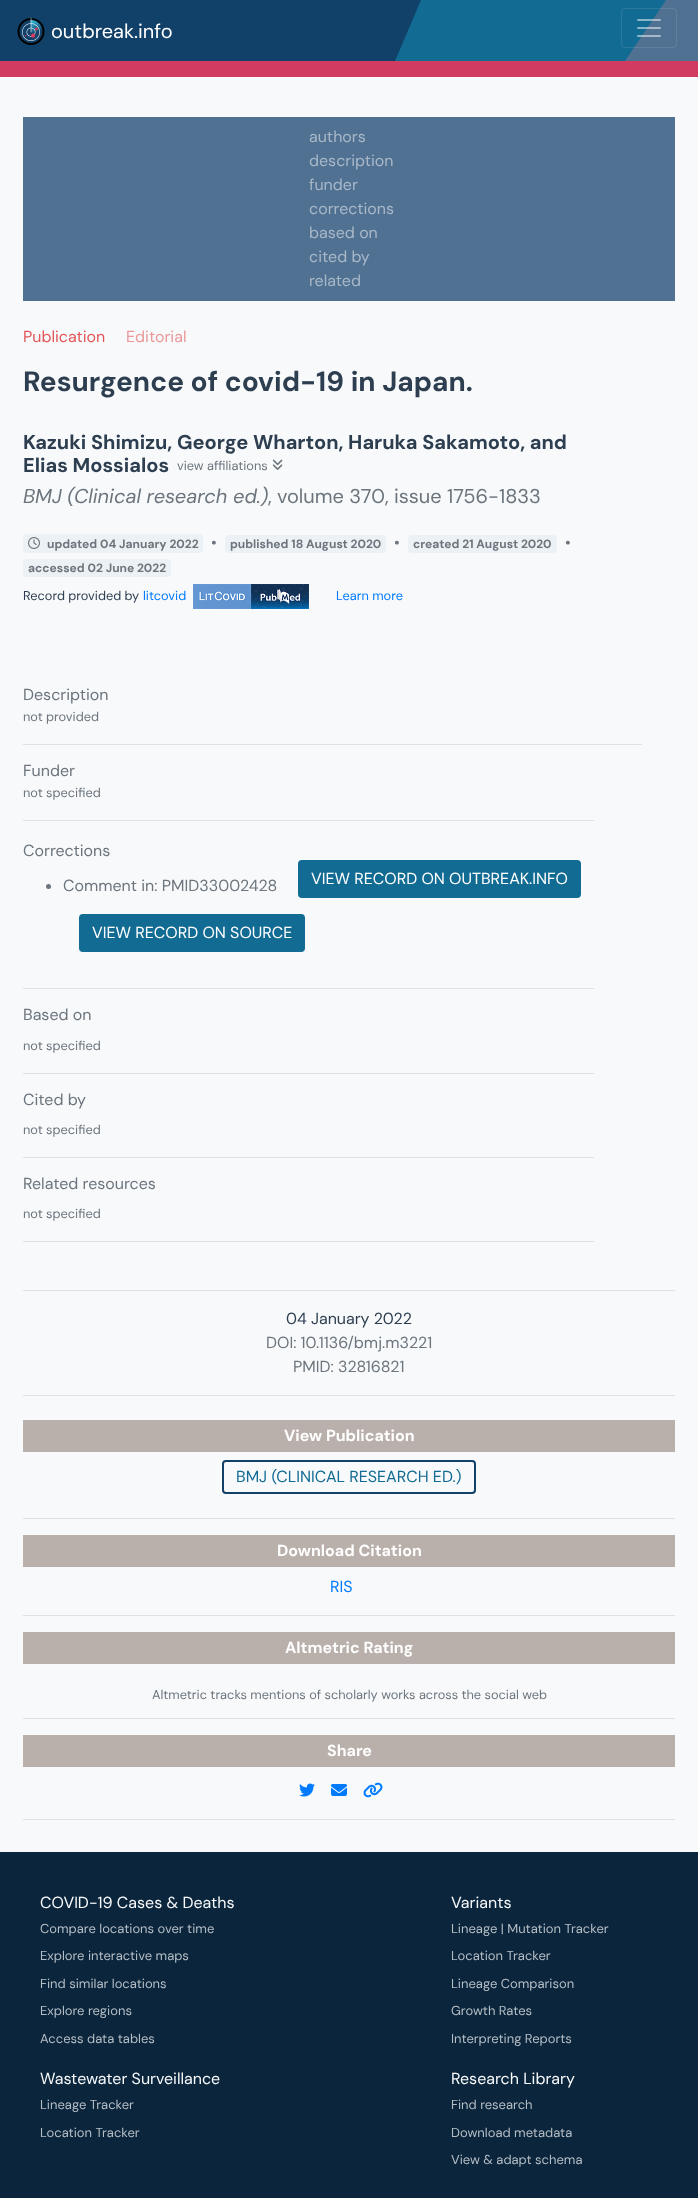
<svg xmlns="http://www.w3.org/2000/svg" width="698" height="2198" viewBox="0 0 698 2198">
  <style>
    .t1 { font: 20px DM Sans; fill: #fff; }
    .t2 { font: 16px DM Sans; fill: #a8b8c9; }
    .t3 { font: 16px DM Sans; fill: #e15759; }
    .t4 { font: 16px DM Sans; fill: #ea9899; }
    .t5 { font: bold 28px DM Sans; fill: #2c3e50; }
    .t6 { font: bold 20px DM Sans; fill: #2c3e50; }
    .t7 { font: 12.8px DM Sans; fill: #6c757d; }
    .t8 { font: italic 20px DM Sans; fill: #6c757d; }
    .t9 { font: 20px DM Sans; fill: #6c757d; }
    .t10 { font: bold 12px DM Sans; fill: #6c757d; }
    .t11 { font: 16px DM Sans; fill: #6c757d; }
    .t12 { font: 12.8px DM Sans; fill: #2c3e50; }
    .t13 { font: 12.8px DM Sans; fill: #007bff; }
    .t14 { font: 16px DM Sans; fill: #fff; }
    .t15 { font: 16px DM Sans; fill: #2c3e50; }
    .t16 { font: bold 16px DM Sans; fill: #fff; }
    .t17 { font: 16px DM Sans; fill: #126b93; }
    .t18 { font: 16px DM Sans; fill: #007bff; }
    .t19 { font: 16px DM Sans; fill: #f8f9fa; }
    .t20 { font: 13px DM Sans; fill: #b6bec5; }
  </style>
  <rect width="100%" height="100%" fill="#f8f9fa"/>
  <rect x="625" y="0" width="73" height="61" fill="#507192"/>
  <path d="M625 61H0V0H666Z" fill="#126b93"/>
  <path d="M395 61H0V0H421Z" fill="#114068"/>
  <image x="17" y="17" width="28" height="28" href="images/1.png"/>
  <text x="51" y="38" class="t1">outbreak.info</text>
  <rect x="621.5" y="8.5" width="55" height="39" rx="3.5" fill="none" stroke="#ffffff1a"/>
  <image x="637" y="19" width="24" height="18" href="images/2.png"/>
  <rect x="0" y="61" width="698" height="16" fill="#d13b62"/>
  <rect x="23" y="117" width="652" height="184" fill="#507192"/>
  <text x="309" y="142" class="t2">authors</text>
  <text x="309" y="166" class="t2">description</text>
  <text x="309" y="190" class="t2">funder</text>
  <text x="309" y="214" class="t2">corrections</text>
  <text x="309" y="238" class="t2">based on</text>
  <text x="309" y="262" class="t2">cited by</text>
  <text x="309" y="286" class="t2">related</text>
  <text x="23" y="342" class="t3">Publication</text>
  <text x="126" y="342" class="t4">Editorial</text>
  <rect x="23" y="744" width="619" height="1" fill="#dee2e6"/>
  <text x="23" y="391" class="t5">Resurgence of covid-19 in Japan.</text>
  <text x="23" y="449" class="t6">Kazuki Shimizu, George Wharton, Haruka Sakamoto, and</text>
  <text x="23" y="472" class="t6">Elias Mossialos</text>
  <text x="177" y="470" class="t7">view affiliations</text>
  <image x="272" y="459" width="11" height="11" href="images/3.png"/>
  <text x="23" y="503" class="t8">BMJ (Clinical research ed.)</text>
  <text x="268" y="503" class="t9">, volume 370</text>
  <text x="385" y="503" class="t9">, issue 1756-1833</text>
  <rect x="23" y="534" width="180" height="19" rx="4" fill="#ecf1f5"/>
  <image x="28" y="537" width="12" height="12" href="images/4.png"/>
  <text x="47" y="548" class="t10">updated 04 January 2022</text>
  <text x="211" y="548" class="t11">•</text>
  <rect x="225" y="535" width="161" height="18" rx="4" fill="#ecf1f5"/>
  <text x="230" y="548" class="t10">published 18 August 2020</text>
  <text x="394" y="548" class="t11">•</text>
  <rect x="408" y="535" width="149" height="18" rx="4" fill="#ecf1f5"/>
  <text x="413" y="548" class="t10">created 21 August 2020</text>
  <text x="565" y="548" class="t11">•</text>
  <rect x="23" y="559" width="148" height="18" rx="4" fill="#ecf1f5"/>
  <text x="28" y="572" class="t10">accessed 02 June 2022</text>
  <text x="23" y="600" class="t12">Record provided by</text>
  <text x="143" y="600" class="t13">litcovid</text>
  <image x="193" y="584" width="116" height="25" href="images/5.png"/>
  <text x="336" y="600" class="t13">Learn more</text>
  <text x="23" y="700" class="t11">Description</text>
  <text x="23" y="721" class="t7">not provided</text>
  <rect x="23" y="820" width="571" height="1" fill="#dee2e6"/>
  <text x="23" y="776" class="t11">Funder</text>
  <text x="23" y="797" class="t7">not specified</text>
  <rect x="23" y="988" width="571" height="1" fill="#dee2e6"/>
  <text x="23" y="856" class="t11">Corrections</text>
  <circle cx="48.5" cy="886.5" r="2.5" fill="#6c757d"/>
  <text x="63" y="891" class="t11">Comment in: PMID33002428</text>
  <rect x="298" y="860" width="283" height="38" rx="4" fill="#126b93"/>
  <text x="311" y="884" class="t14">VIEW RECORD ON OUTBREAK.INFO</text>
  <rect x="79" y="914" width="226" height="38" rx="4" fill="#126b93"/>
  <text x="92" y="938" class="t14">VIEW RECORD ON SOURCE</text>
  <rect x="23" y="1073" width="571" height="1" fill="#dee2e6"/>
  <text x="23" y="1020" class="t11">Based on</text>
  <text x="23" y="1050" class="t7">not specified</text>
  <rect x="23" y="1157" width="571" height="1" fill="#dee2e6"/>
  <text x="23" y="1105" class="t11">Cited by</text>
  <text x="23" y="1134" class="t7">not specified</text>
  <rect x="23" y="1241" width="571" height="1" fill="#dee2e6"/>
  <text x="23" y="1189" class="t11">Related resources</text>
  <text x="23" y="1218" class="t7">not specified</text>
  <rect x="23" y="1290" width="652" height="1" fill="#dee2e6"/>
  <rect x="23" y="1395" width="652" height="1" fill="#dee2e6"/>
  <text x="286" y="1324" class="t15">04 January 2022</text>
  <text x="266" y="1348" class="t11">DOI: 10.1136/bmj.m3221</text>
  <text x="293" y="1372" class="t11">PMID: 32816821</text>
  <rect x="23" y="1518" width="652" height="1" fill="#dee2e6"/>
  <rect x="23" y="1420" width="652" height="32" fill="#bab0ab"/>
  <text x="284" y="1441" class="t16">View Publication</text>
  <rect x="223" y="1461" width="252" height="32" rx="3" fill="none" stroke="#114068" stroke-width="2"/>
  <text x="236" y="1482" class="t17">BMJ (CLINICAL RESEARCH ED.)</text>
  <rect x="23" y="1615" width="652" height="1" fill="#dee2e6"/>
  <rect x="23" y="1535" width="652" height="32" fill="#bab0ab"/>
  <text x="277" y="1556" class="t16">Download Citation</text>
  <text x="330" y="1592" class="t18">RIS</text>
  <rect x="23" y="1718" width="652" height="1" fill="#dee2e6"/>
  <rect x="23" y="1632" width="652" height="32" fill="#bab0ab"/>
  <text x="285" y="1653" class="t16">Altmetric Rating</text>
  <text x="152" y="1699" class="t7">Altmetric tracks mentions of scholarly works across the social web</text>
  <rect x="23" y="1819" width="652" height="1" fill="#dee2e6"/>
  <rect x="23" y="1735" width="652" height="32" fill="#bab0ab"/>
  <text x="327" y="1756" class="t16">Share</text>
  <image x="299" y="1783" width="16" height="14" href="images/6.png"/>
  <image x="331" y="1784" width="16" height="12" href="images/7.png"/>
  <image x="363" y="1782" width="20" height="16" href="images/8.png"/>
  <rect x="0" y="1852" width="698" height="346" fill="#0a253c"/>
  <text x="40" y="1908" class="t19">COVID-19 Cases &amp; Deaths</text>
  <text x="40" y="1933" class="t20">Compare locations over time</text>
  <text x="40" y="1960" class="t20">Explore interactive maps</text>
  <text x="40" y="1988" class="t20">Find similar locations</text>
  <text x="40" y="2015" class="t20">Explore regions</text>
  <text x="40" y="2043" class="t20">Access data tables</text>
  <text x="451" y="1908" class="t19">Variants</text>
  <text x="451" y="1933" class="t20">Lineage | Mutation Tracker</text>
  <text x="451" y="1960" class="t20">Location Tracker</text>
  <text x="451" y="1988" class="t20">Lineage Comparison</text>
  <text x="451" y="2015" class="t20">Growth Rates</text>
  <text x="451" y="2043" class="t20">Interpreting Reports</text>
  <text x="40" y="2084" class="t19">Wastewater Surveillance</text>
  <text x="40" y="2109" class="t20">Lineage Tracker</text>
  <text x="40" y="2137" class="t20">Location Tracker</text>
  <text x="451" y="2084" class="t19">Research Library</text>
  <text x="451" y="2109" class="t20">Find research</text>
  <text x="451" y="2137" class="t20">Download metadata</text>
  <text x="451" y="2164" class="t20">View &amp; adapt schema</text>
</svg>
